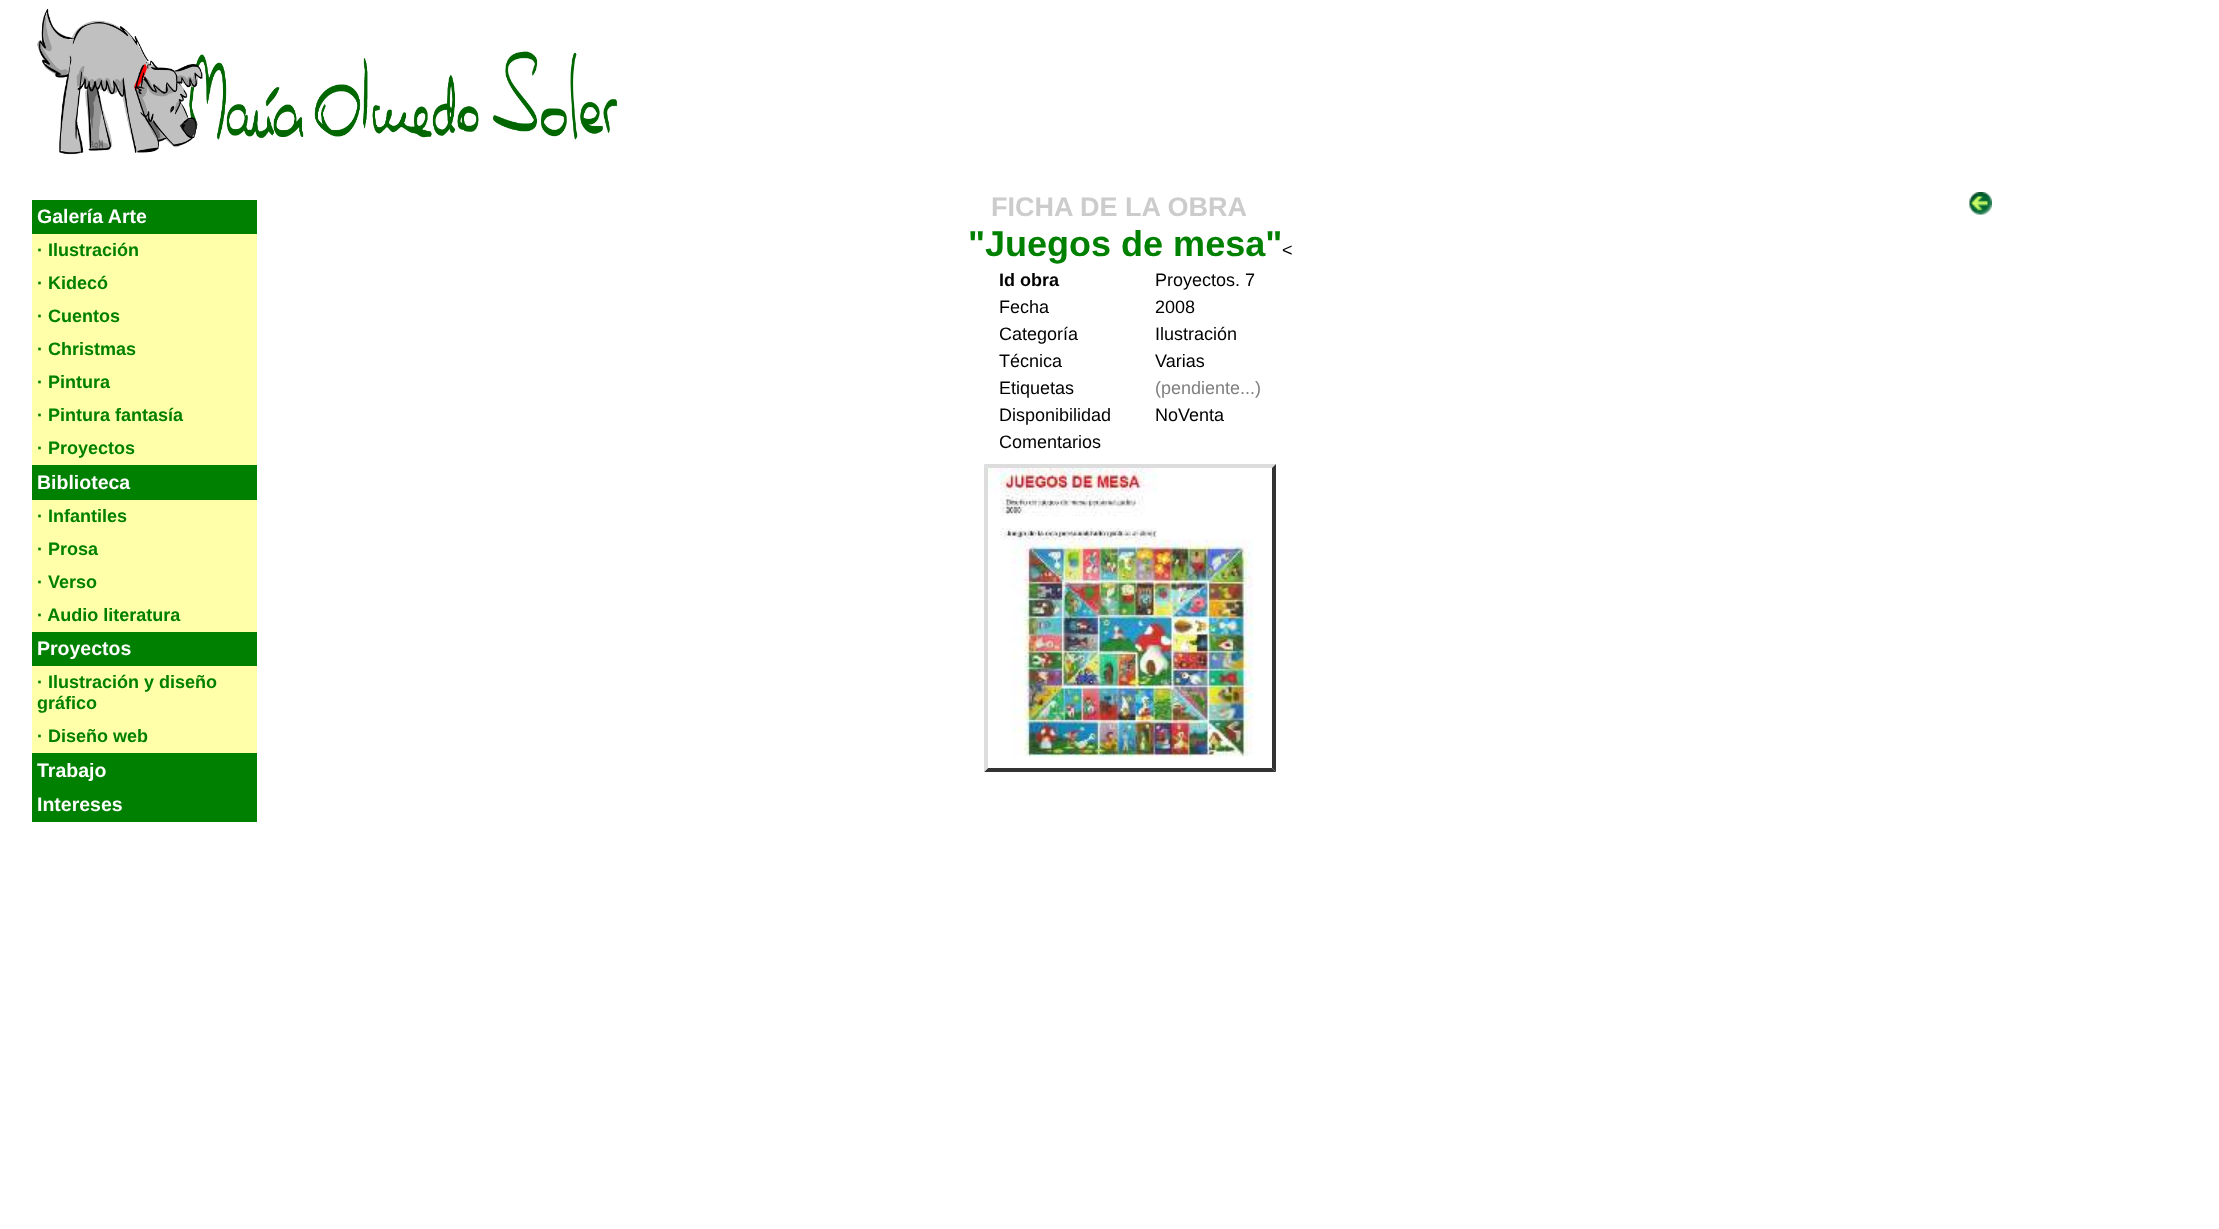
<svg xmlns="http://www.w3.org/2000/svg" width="2219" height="1229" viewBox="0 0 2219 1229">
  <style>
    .t1 { font: bold 19.5px Liberation Sans; fill: #fff; }
    .t2 { font: bold 18px Liberation Sans; fill: #008000; }
    .t3 { font: bold 27px Liberation Sans; fill: #ccc; }
    .t4 { font: bold 36px Liberation Sans; fill: #008000; }
    .t5 { font: 18px Liberation Sans; fill: #000; }
    .t6 { font: bold 18px Liberation Sans; fill: #000; }
    .t7 { font: 18px Liberation Sans; fill: #808080; }
  </style>
  <rect width="100%" height="100%" fill="#fff"/>
  <image x="37" y="8" width="581" height="147" href="images/1.png"/>
  <rect x="32" y="200" width="225" height="34" fill="#008000"/>
  <text x="37" y="223" class="t1">Galería Arte</text>
  <rect x="32" y="234" width="225" height="231" fill="#ffa"/>
  <text x="37" y="256" class="t2">· Ilustración</text>
  <text x="37" y="289" class="t2">· Kidecó</text>
  <text x="37" y="322" class="t2">· Cuentos</text>
  <text x="37" y="355" class="t2">· Christmas</text>
  <text x="37" y="388" class="t2">· Pintura</text>
  <text x="37" y="421" class="t2">· Pintura fantasía</text>
  <text x="37" y="454" class="t2">· Proyectos</text>
  <rect x="32" y="465" width="225" height="35" fill="#008000"/>
  <text x="37" y="489" class="t1">Biblioteca</text>
  <rect x="32" y="500" width="225" height="132" fill="#ffa"/>
  <text x="37" y="522" class="t2">· Infantiles</text>
  <text x="37" y="555" class="t2">· Prosa</text>
  <text x="37" y="588" class="t2">· Verso</text>
  <text x="37" y="621" class="t2">· Audio literatura</text>
  <rect x="32" y="632" width="225" height="34" fill="#008000"/>
  <text x="37" y="655" class="t1">Proyectos</text>
  <rect x="32" y="666" width="225" height="87" fill="#ffa"/>
  <text x="37" y="688" class="t2">· Ilustración y diseño</text>
  <text x="37" y="709" class="t2">gráfico</text>
  <text x="37" y="742" class="t2">· Diseño web</text>
  <rect x="32" y="753" width="225" height="69" fill="#008000"/>
  <text x="37" y="777" class="t1">Trabajo</text>
  <text x="37" y="811" class="t1">Intereses</text>
  <text x="991" y="216" class="t3">FICHA DE LA OBRA</text>
  <image x="1969" y="192" width="23" height="23" href="images/2.png"/>
  <text x="968" y="256" class="t4">"Juegos de mesa"</text>
  <text x="1282" y="256" class="t5">&lt;</text>
  <text x="999" y="286" class="t6">Id obra</text>
  <text x="1155" y="286" class="t5">Proyectos. 7</text>
  <text x="999" y="313" class="t5">Fecha</text>
  <text x="1155" y="313" class="t5">2008</text>
  <text x="999" y="340" class="t5">Categoría</text>
  <text x="1155" y="340" class="t5">Ilustración</text>
  <text x="999" y="367" class="t5">Técnica</text>
  <text x="1155" y="367" class="t5">Varias</text>
  <text x="999" y="394" class="t5">Etiquetas</text>
  <text x="1155" y="394" class="t7">(pendiente...)</text>
  <text x="999" y="421" class="t5">Disponibilidad</text>
  <text x="1155" y="421" class="t5">NoVenta</text>
  <text x="999" y="448" class="t5">Comentarios</text>
  <path d="M984 464H1276L1272 468H988Z" fill="#ddd"/>
  <path d="M1276 464V772L1272 768V468Z" fill="#333"/>
  <path d="M1276 772H984L988 768H1272Z" fill="#333"/>
  <path d="M984 772V464L988 468V768Z" fill="#ddd"/>
  <image x="988" y="468" width="266" height="290" href="images/3.png"/>
</svg>
